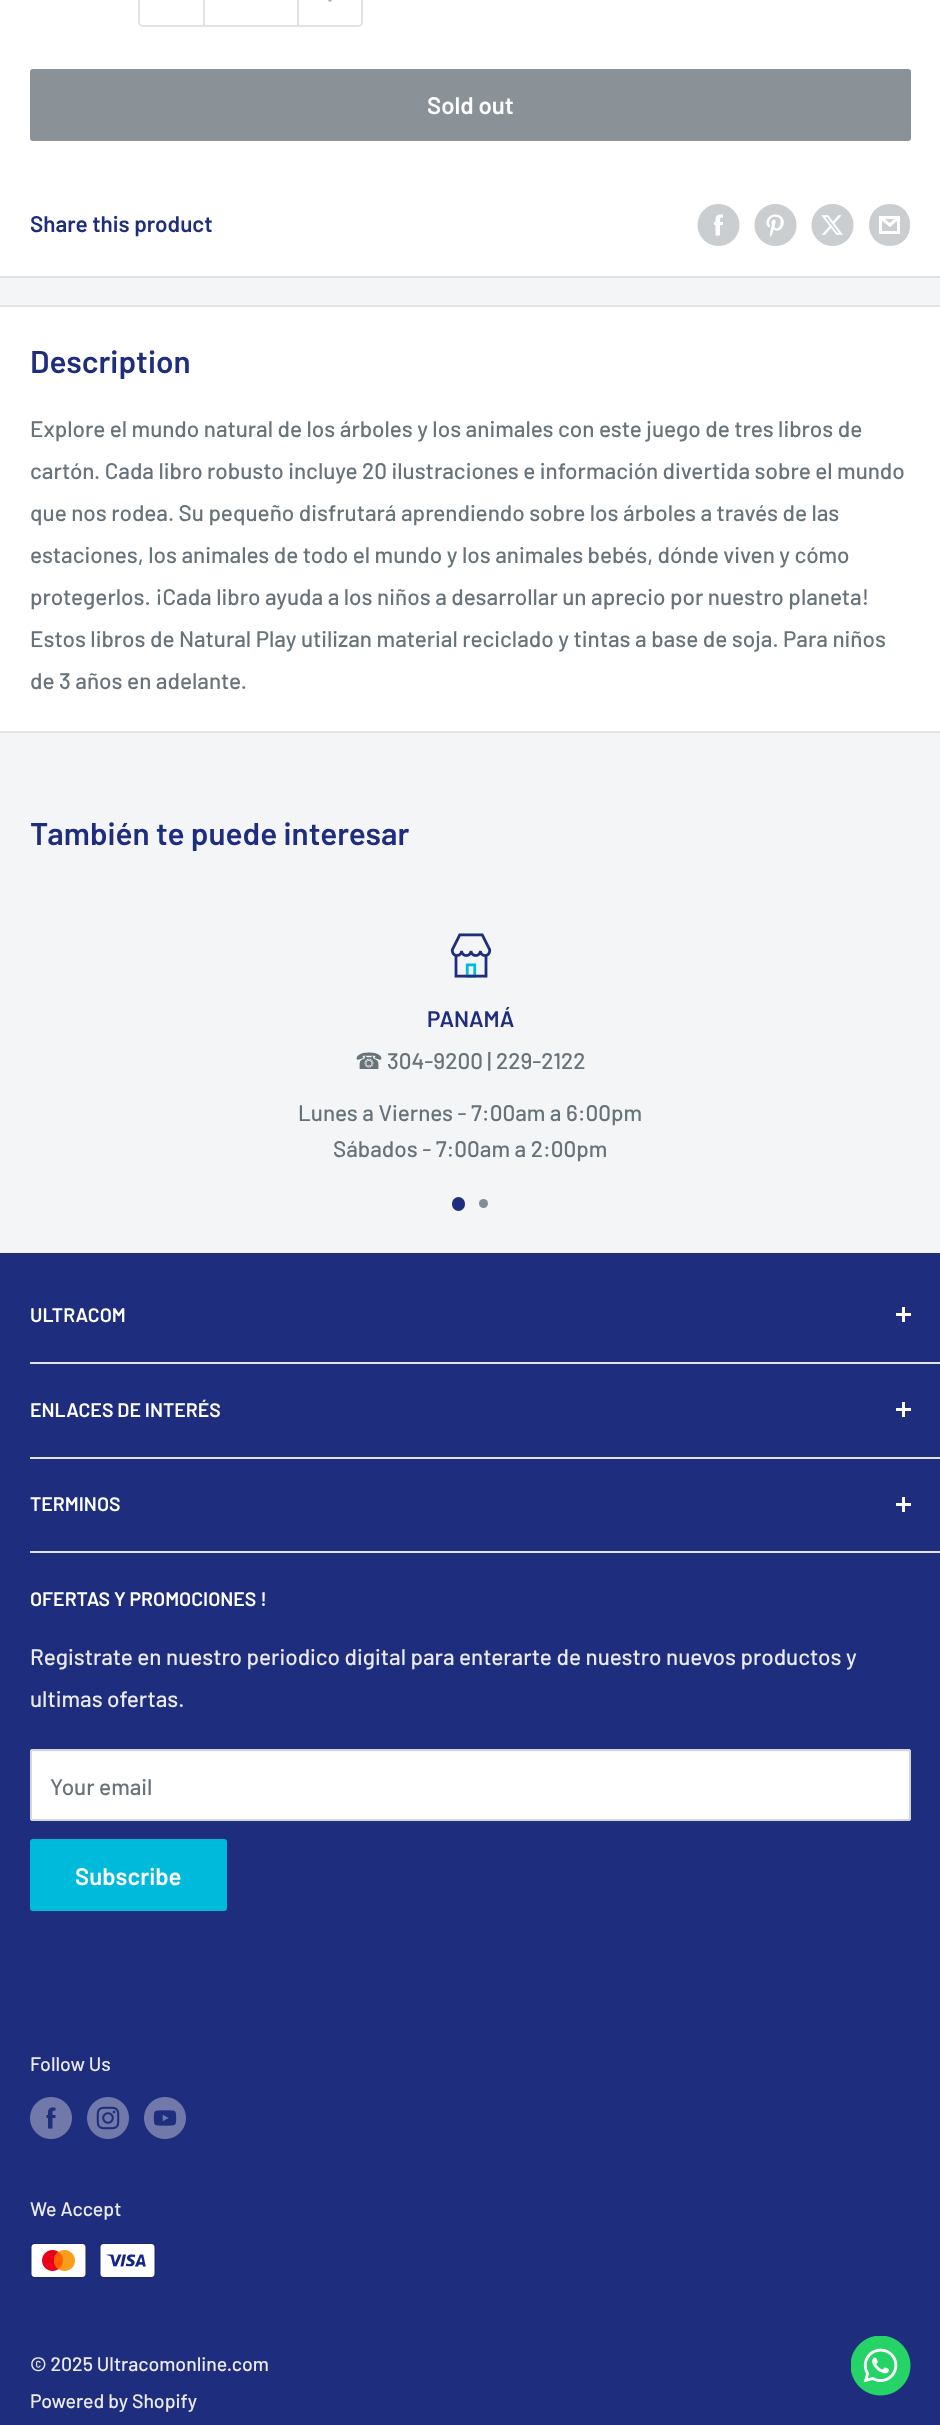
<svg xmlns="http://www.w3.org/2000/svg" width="940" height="2425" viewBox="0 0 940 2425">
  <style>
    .t1 { font: 600 24px Barlow; fill: #fff; }
    .t2 { font: 600 22.5px Barlow; fill: #1e2d7d; }
    .t3 { font: 600 31.5px Barlow; fill: #1e2d7d; }
    .t4 { font: 500 22.5px Barlow; fill: #677279; }
    .t5 { font: 22.5px DejaVu Sans; fill: #677279; }
    .t6 { font: 600 19.5px Barlow; fill: #fff; }
    .t7 { font: 500 22.5px Barlow; fill: #eaeaea; }
    .t8 { font: 500 19.5px Barlow; fill: #eaeaea; }
  </style>
  <rect width="100%" height="100%" fill="#f3f5f6"/>
  <rect x="0" y="0" width="940" height="276" fill="#fff"/>
  <rect x="0" y="276" width="940" height="2" fill="#e1e3e4"/>
  <rect x="139" y="-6" width="223" height="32" rx="4" fill="none" stroke="#e1e3e4" stroke-width="2"/>
  <rect x="297" y="0" width="2" height="26" fill="#e1e3e4"/>
  <rect x="203" y="0" width="2" height="26" fill="#e1e3e4"/>
  <image x="328" y="0" width="4" height="2" href="images/1.png"/>
  <rect x="31" y="70" width="879" height="70" rx="2" fill="#8a9297" stroke="#8a9297" stroke-width="2"/>
  <text x="427" y="114" class="t1">Sold out</text>
  <text x="30" y="232" class="t2">Share this product</text>
  <image x="697" y="204" width="43" height="42" href="images/2.png"/>
  <image x="754" y="204" width="43" height="42" href="images/3.png"/>
  <image x="811" y="204" width="43" height="42" href="images/4.png"/>
  <path d="M890 246C862 246 862 204 890 204C917 204 917 246 890 246ZM885 219H894L890 223ZM897 221V231H882V221L890 227ZM900 216H879V234H900Z" fill="#caced0"/>
  <rect x="0" y="307" width="940" height="424" fill="#fff"/>
  <rect x="0" y="305" width="940" height="2" fill="#e1e3e4"/>
  <rect x="0" y="731" width="940" height="2" fill="#e1e3e4"/>
  <text x="30" y="373" class="t3">Description</text>
  <text x="30" y="437" class="t4">Explore el mundo natural de los árboles y los animales con este juego de tres libros de</text>
  <text x="30" y="479" class="t4">cartón. Cada libro robusto incluye 20 ilustraciones e información divertida sobre el mundo</text>
  <text x="30" y="521" class="t4">que nos rodea. Su pequeño disfrutará aprendiendo sobre los árboles a través de las</text>
  <text x="30" y="563" class="t4">estaciones, los animales de todo el mundo y los animales bebés, dónde viven y cómo</text>
  <text x="30" y="605" class="t4">protegerlos. ¡Cada libro ayuda a los niños a desarrollar un aprecio por nuestro planeta!</text>
  <text x="30" y="647" class="t4">Estos libros de Natural Play utilizan material reciclado y tintas a base de soja. Para niños</text>
  <text x="30" y="689" class="t4">de 3 años en adelante.</text>
  <text x="30" y="845" class="t3">También te puede interesar</text>
  <image x="450" y="933" width="42" height="45" href="images/5.png"/>
  <text x="427" y="1027" class="t2">PANAMÁ</text>
  <text x="355" y="1069" class="t5">☎</text>
  <text x="387" y="1069" class="t4">304-9200 | 229-2122</text>
  <text x="298" y="1121" class="t4">Lunes a Viernes - 7:00am a 6:00pm</text>
  <text x="333" y="1157" class="t4">Sábados - 7:00am a 2:00pm</text>
  <rect x="452" y="1197" width="13" height="14" rx="6.5" fill="#1e2d7d"/>
  <circle cx="483.5" cy="1203.5" r="4.5" fill="#838c92"/>
  <rect x="0" y="1253" width="940" height="1172" fill="#1e2d7d"/>
  <rect x="30" y="1362" width="910" height="2" fill="#e1e3e4"/>
  <text x="30" y="1322" class="t6">ULTRACOM</text>
  <rect x="902" y="1307" width="3" height="15" fill="#fff"/>
  <rect x="896" y="1313" width="15" height="3" fill="#fff"/>
  <rect x="30" y="1457" width="910" height="2" fill="#e1e3e4"/>
  <text x="30" y="1417" class="t6">ENLACES DE INTERÉS</text>
  <rect x="902" y="1402" width="3" height="15" fill="#fff"/>
  <rect x="896" y="1408" width="15" height="3" fill="#fff"/>
  <rect x="30" y="1551" width="910" height="2" fill="#e1e3e4"/>
  <text x="30" y="1511" class="t6">TERMINOS</text>
  <rect x="902" y="1497" width="3" height="15" fill="#fff"/>
  <rect x="896" y="1503" width="15" height="3" fill="#fff"/>
  <text x="30" y="1606" class="t6">OFERTAS Y PROMOCIONES !</text>
  <text x="30" y="1665" class="t7">Registrate en nuestro periodico digital para enterarte de nuestro nuevos productos y</text>
  <text x="30" y="1707" class="t7">ultimas ofertas.</text>
  <rect x="30" y="1749" width="881" height="72" rx="3" fill="#fff"/>
  <path d="M33 1752H908L909 1754C909 1753 909 1751 908 1751H33L32 1752V1754C32 1753 32 1752 33 1752Z" fill="#f8f8f8"/>
  <rect x="31" y="1750" width="879" height="70" rx="2" fill="none" stroke="#d4d6d8" stroke-width="2"/>
  <text x="50" y="1795" class="t4">Your email</text>
  <rect x="30" y="1839" width="197" height="72" rx="3" fill="#00badb"/>
  <text x="75" y="1885" class="t1">Subscribe</text>
  <text x="30" y="2071" class="t8">Follow Us</text>
  <image x="30" y="2097" width="42" height="42" href="images/6.png"/>
  <image x="87" y="2097" width="42" height="42" href="images/7.png"/>
  <image x="144" y="2097" width="42" height="42" href="images/8.png"/>
  <text x="30" y="2216" class="t8">We Accept</text>
  <image x="30" y="2243" width="57" height="36" href="images/9.png"/>
  <image x="99" y="2243" width="57" height="36" href="images/10.png"/>
  <text x="30" y="2371" class="t8">© 2025 Ultracomonline.com</text>
  <text x="30" y="2408" class="t8">Powered by Shopify</text>
  <image x="851" y="2336" width="60" height="60" href="images/11.png"/>
</svg>
